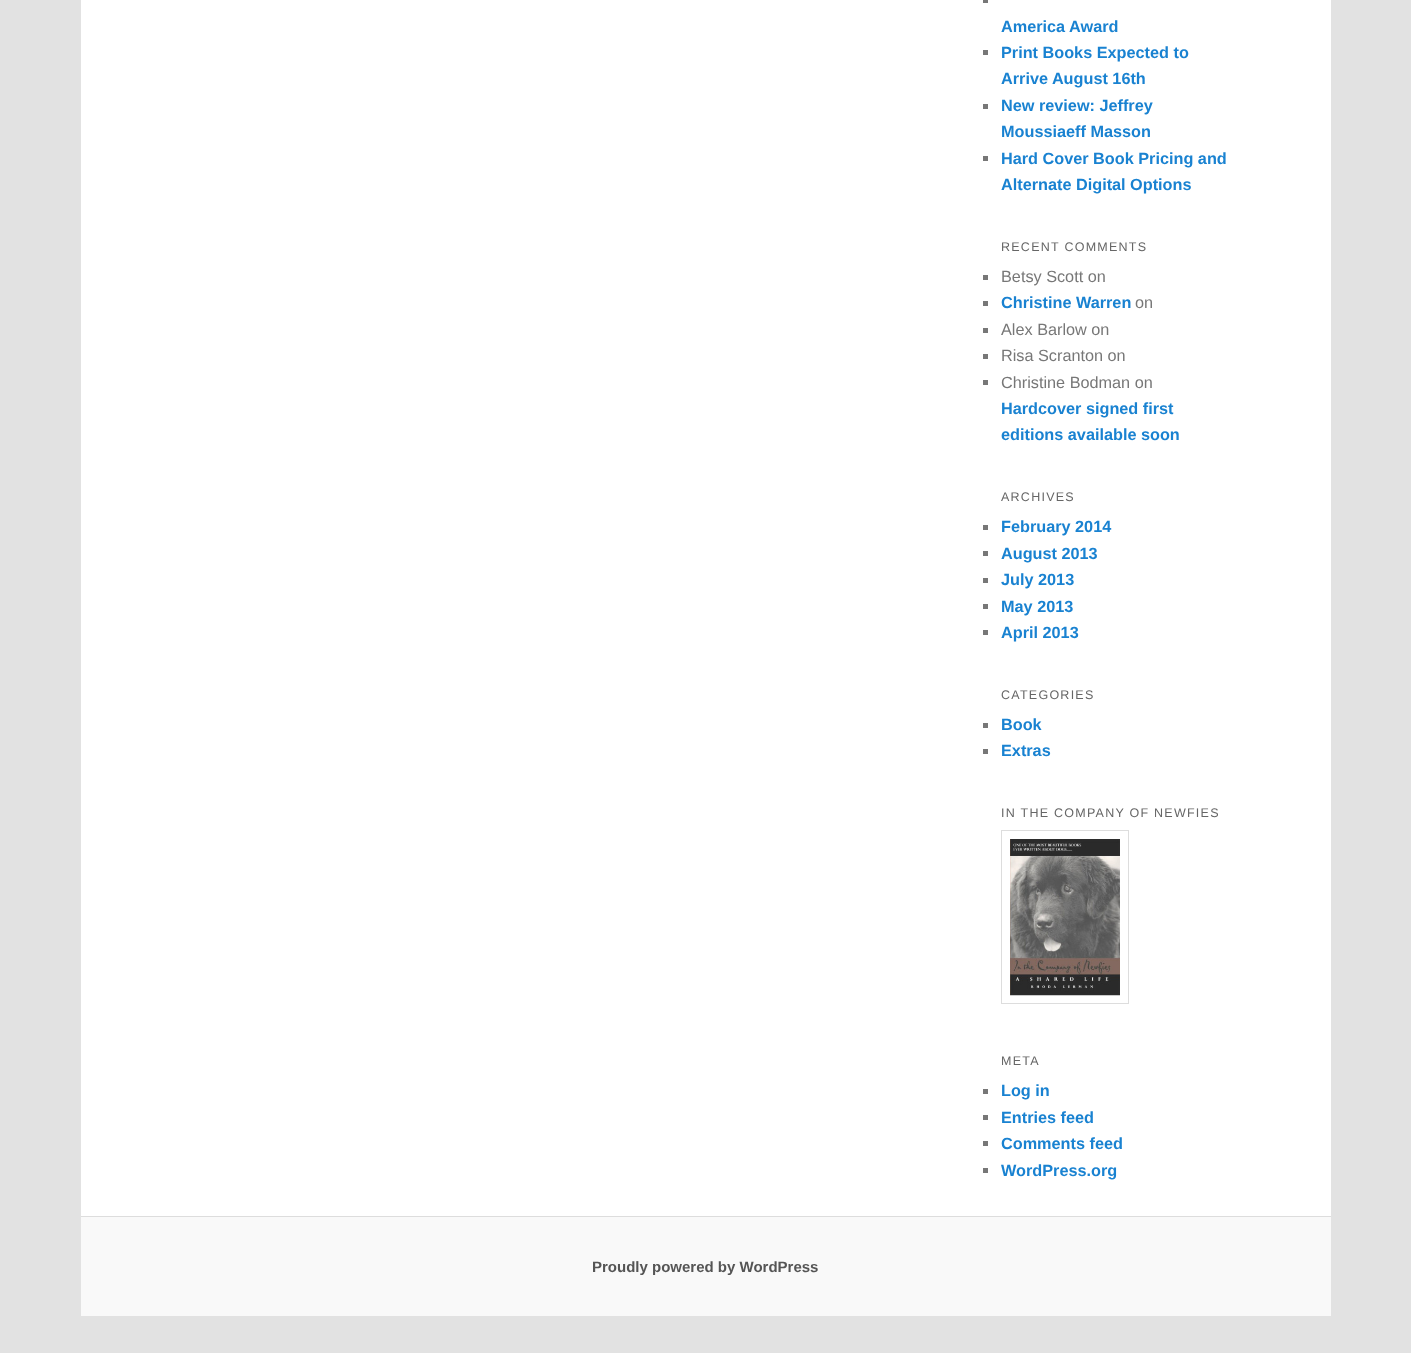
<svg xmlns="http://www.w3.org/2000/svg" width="1411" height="1353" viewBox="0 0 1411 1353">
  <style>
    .t1 { font: bold 16.25px Liberation Sans; fill: #1982d1; }
    .t2 { font: 12.5px Liberation Sans; letter-spacing: 1.25px; fill: #666; }
    .t3 { font: 16.25px Liberation Sans; fill: #777; }
    .t4 { font: bold 15px Liberation Sans; fill: #555; }
  </style>
  <rect width="100%" height="100%" fill="#e2e2e2"/>
  <rect x="81" y="0" width="1250" height="1216" fill="#fff"/>
  <rect x="983" y="0" width="5" height="3" fill="#777"/>
  <text x="1001" y="32" class="t1">America Award</text>
  <rect x="983" y="50" width="5" height="5" fill="#777"/>
  <text x="1001" y="58" class="t1">Print Books Expected to</text>
  <text x="1001" y="84" class="t1">Arrive August 16th</text>
  <rect x="983" y="104" width="5" height="5" fill="#777"/>
  <text x="1001" y="111" class="t1">New review: Jeffrey</text>
  <text x="1001" y="137" class="t1">Moussiaeff Masson</text>
  <rect x="983" y="156" width="5" height="5" fill="#777"/>
  <text x="1001" y="164" class="t1">Hard Cover Book Pricing and</text>
  <text x="1001" y="190" class="t1">Alternate Digital Options</text>
  <text x="1001" y="251" class="t2">RECENT COMMENTS</text>
  <rect x="983" y="275" width="5" height="5" fill="#777"/>
  <text x="1001" y="282" class="t3">Betsy Scott on</text>
  <rect x="983" y="301" width="5" height="5" fill="#777"/>
  <text x="1001" y="308" class="t1">Christine Warren</text>
  <text x="1135" y="308" class="t3">on</text>
  <rect x="983" y="328" width="5" height="5" fill="#777"/>
  <text x="1001" y="335" class="t3">Alex Barlow on</text>
  <rect x="983" y="354" width="5" height="5" fill="#777"/>
  <text x="1001" y="361" class="t3">Risa Scranton on</text>
  <rect x="983" y="380" width="5" height="5" fill="#777"/>
  <text x="1001" y="388" class="t3">Christine Bodman on</text>
  <text x="1001" y="414" class="t1">Hardcover signed first</text>
  <text x="1001" y="440" class="t1">editions available soon</text>
  <text x="1001" y="501" class="t2">ARCHIVES</text>
  <rect x="983" y="525" width="5" height="5" fill="#777"/>
  <text x="1001" y="532" class="t1">February 2014</text>
  <rect x="983" y="551" width="5" height="5" fill="#777"/>
  <text x="1001" y="559" class="t1">August 2013</text>
  <rect x="983" y="578" width="5" height="5" fill="#777"/>
  <text x="1001" y="585" class="t1">July 2013</text>
  <rect x="983" y="604" width="5" height="5" fill="#777"/>
  <text x="1001" y="612" class="t1">May 2013</text>
  <rect x="983" y="630" width="5" height="5" fill="#777"/>
  <text x="1001" y="638" class="t1">April 2013</text>
  <text x="1001" y="699" class="t2">CATEGORIES</text>
  <rect x="983" y="723" width="5" height="5" fill="#777"/>
  <text x="1001" y="730" class="t1">Book</text>
  <rect x="983" y="749" width="5" height="5" fill="#777"/>
  <text x="1001" y="756" class="t1">Extras</text>
  <text x="1001" y="817" class="t2">IN THE COMPANY OF NEWFIES</text>
  <rect x="1001.5" y="830.5" width="127" height="173" fill="none" stroke="#ddd"/>
  <image x="1010" y="839" width="110" height="157" href="images/1.png"/>
  <text x="1001" y="1065" class="t2">META</text>
  <rect x="983" y="1089" width="5" height="5" fill="#777"/>
  <text x="1001" y="1096" class="t1">Log in</text>
  <rect x="983" y="1115" width="5" height="5" fill="#777"/>
  <text x="1001" y="1123" class="t1">Entries feed</text>
  <rect x="983" y="1141" width="5" height="5" fill="#777"/>
  <text x="1001" y="1149" class="t1">Comments feed</text>
  <rect x="983" y="1168" width="5" height="5" fill="#777"/>
  <text x="1001" y="1176" class="t1">WordPress.org</text>
  <rect x="81" y="1217" width="1250" height="99" fill="#f9f9f9"/>
  <rect x="81" y="1216" width="1250" height="1" fill="#ddd"/>
  <text x="592" y="1272" class="t4">Proudly powered by WordPress</text>
</svg>
